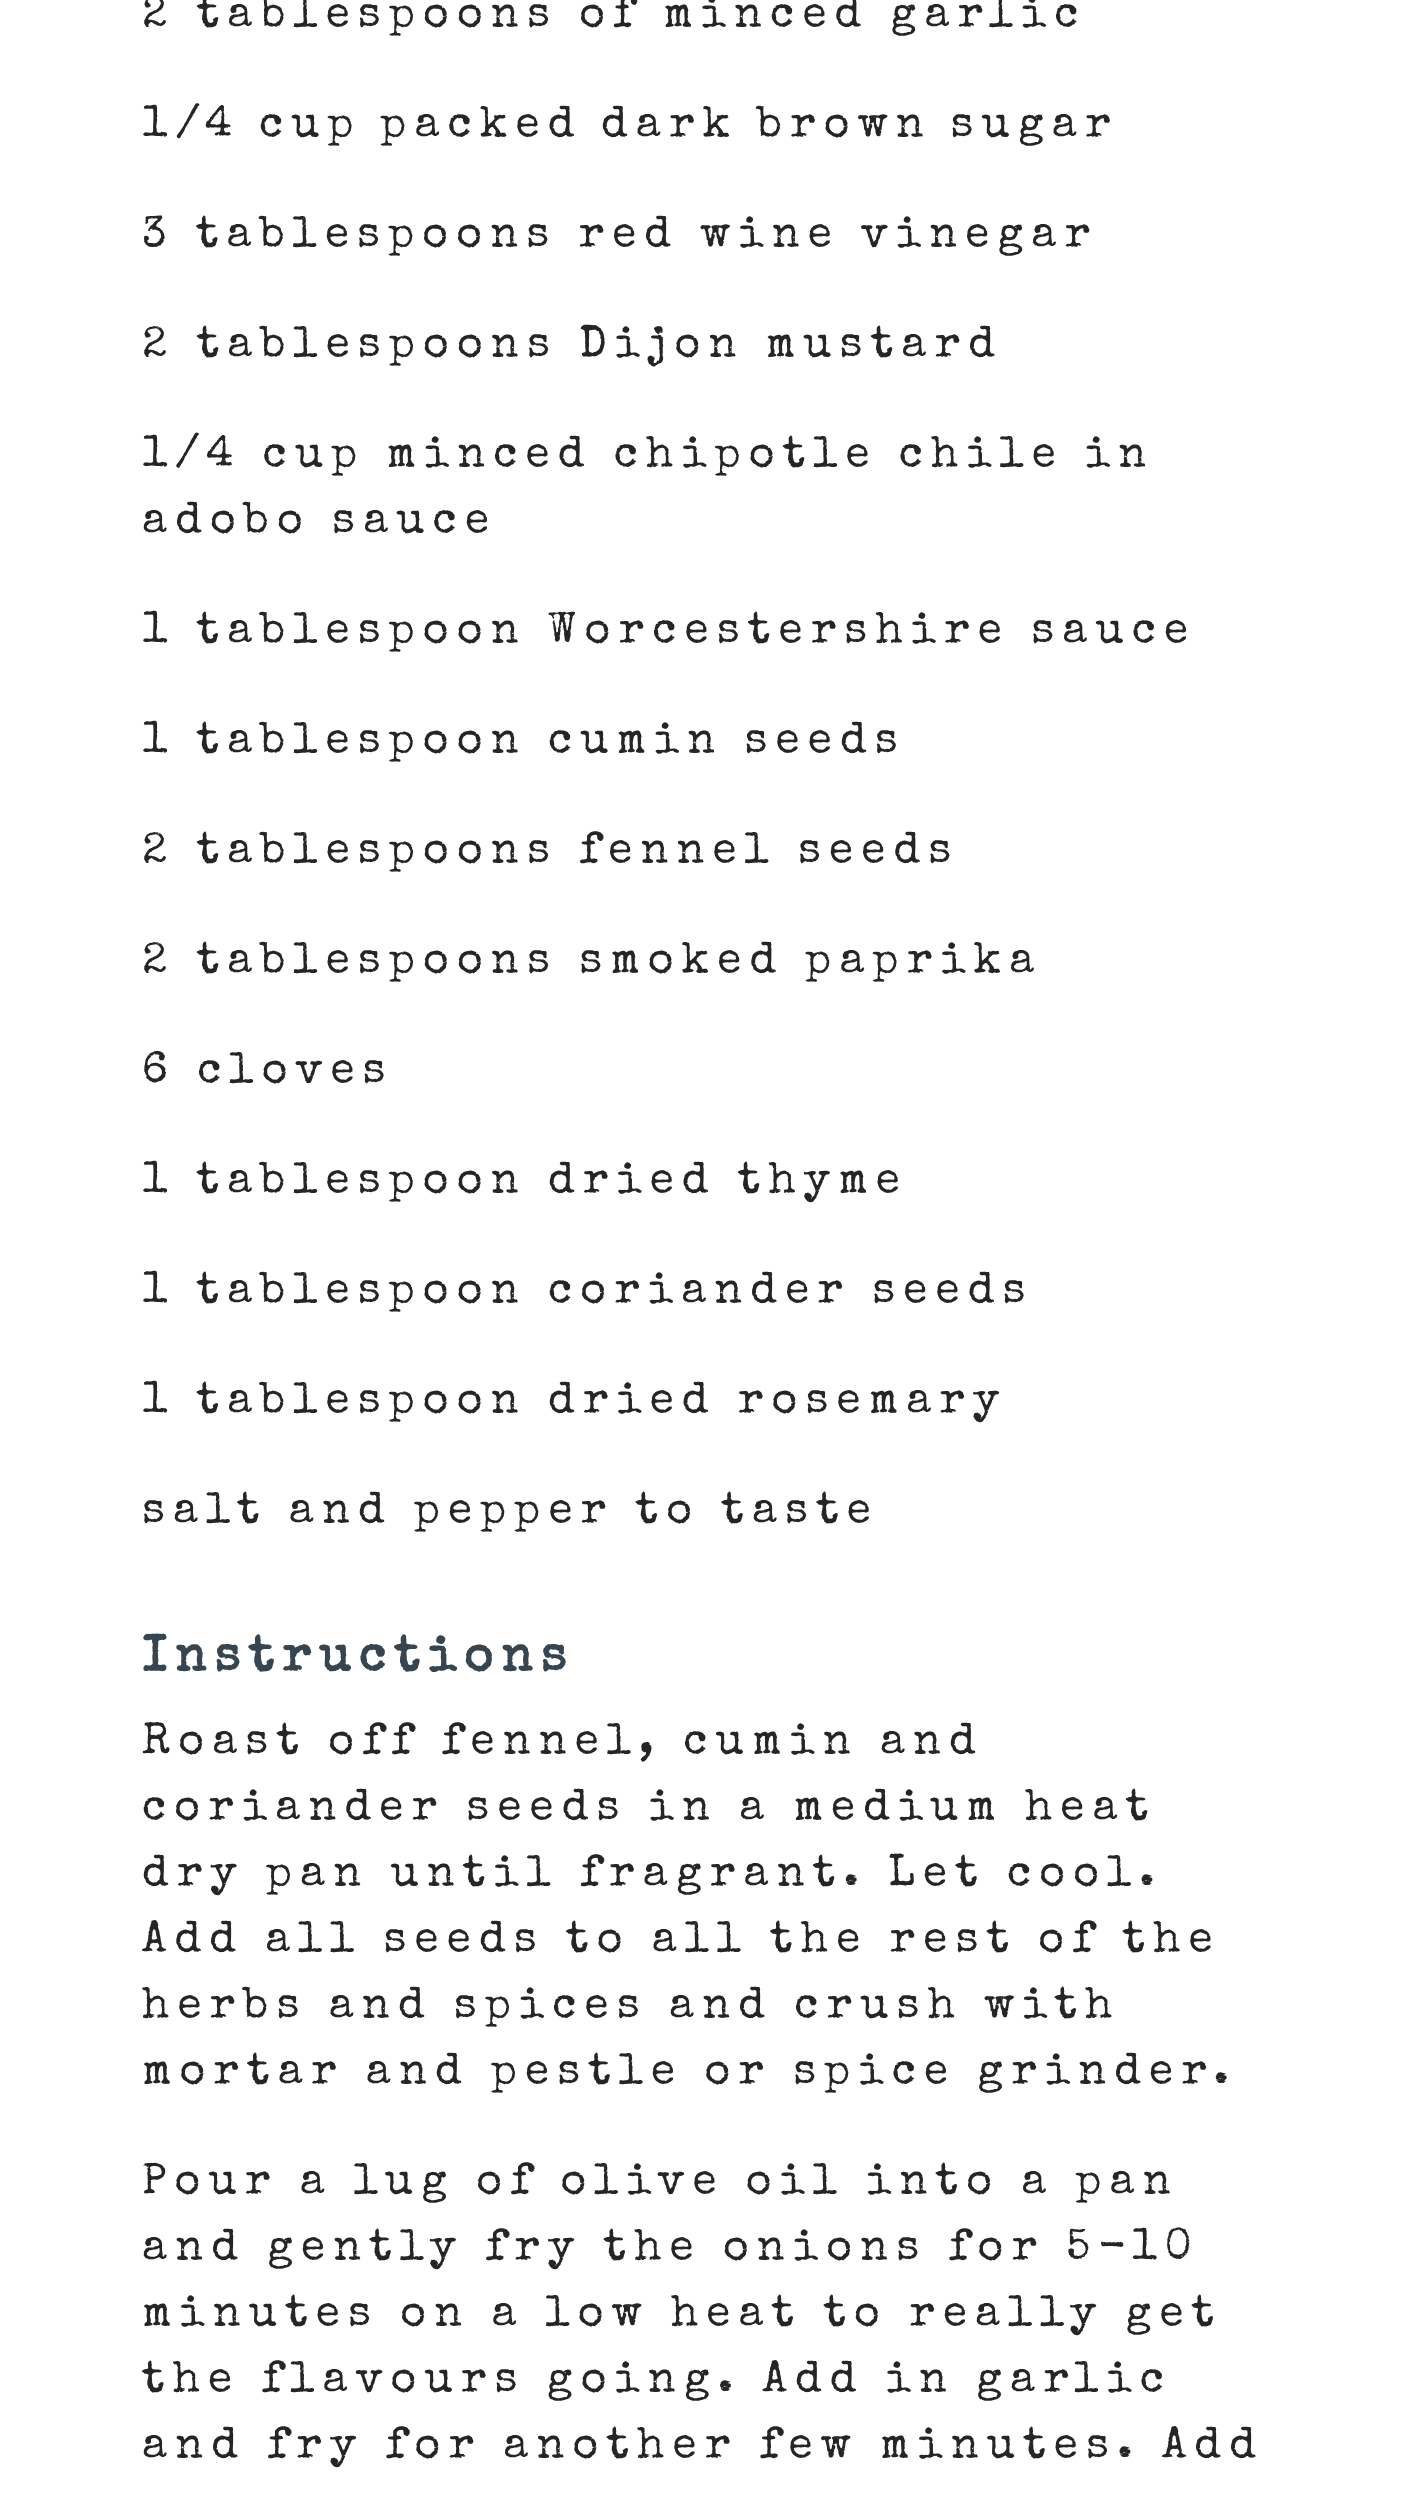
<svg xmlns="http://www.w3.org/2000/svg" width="1415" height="2500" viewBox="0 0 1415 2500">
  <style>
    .t1 { font: 44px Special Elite; letter-spacing: 8.25px; fill: #252525; }
    .t2 { font: bold 49.5px Special Elite; letter-spacing: 8.25px; fill: #36454f; }
  </style>
  <rect width="100%" height="100%" fill="#fff"/>
  <text x="142" y="26" class="t1">2 tablespoons of minced garlic</text>
  <text x="142" y="136" word-spacing="-2.5" class="t1">1⁄4 cup packed dark brown sugar</text>
  <text x="142" y="246" class="t1">3 tablespoons red wine vinegar</text>
  <text x="142" y="356" class="t1">2 tablespoons Dijon mustard</text>
  <text x="142" y="466" class="t1">1/4 cup minced chipotle chile in</text>
  <text x="142" y="532" class="t1">adobo sauce</text>
  <text x="142" y="642" class="t1">1 tablespoon Worcestershire sauce</text>
  <text x="142" y="752" class="t1">1 tablespoon cumin seeds</text>
  <text x="142" y="862" class="t1">2 tablespoons fennel seeds</text>
  <text x="142" y="972" class="t1">2 tablespoons smoked paprika</text>
  <text x="142" y="1082" class="t1">6 cloves</text>
  <text x="142" y="1192" class="t1">1 tablespoon dried thyme</text>
  <text x="142" y="1302" class="t1">1 tablespoon coriander seeds</text>
  <text x="142" y="1412" class="t1">1 tablespoon dried rosemary</text>
  <text x="142" y="1522" class="t1">salt and pepper to taste</text>
  <text x="142" y="1670" class="t2">Instructions</text>
  <text x="142" y="1753" class="t1">Roast off fennel, cumin and</text>
  <text x="142" y="1819" class="t1">coriander seeds in a medium heat</text>
  <text x="142" y="1885" class="t1">dry pan until fragrant. Let cool.</text>
  <text x="142" y="1951" class="t1">Add all seeds to all the rest of the</text>
  <text x="142" y="2017" class="t1">herbs and spices and crush with</text>
  <text x="142" y="2083" class="t1">mortar and pestle or spice grinder.</text>
  <text x="142" y="2193" class="t1">Pour a lug of olive oil into a pan</text>
  <text x="142" y="2259" class="t1">and gently fry the onions for 5-10</text>
  <text x="142" y="2325" class="t1">minutes on a low heat to really get</text>
  <text x="142" y="2391" class="t1">the flavours going. Add in garlic</text>
  <text x="142" y="2457" class="t1">and fry for another few minutes. Add</text>
</svg>
